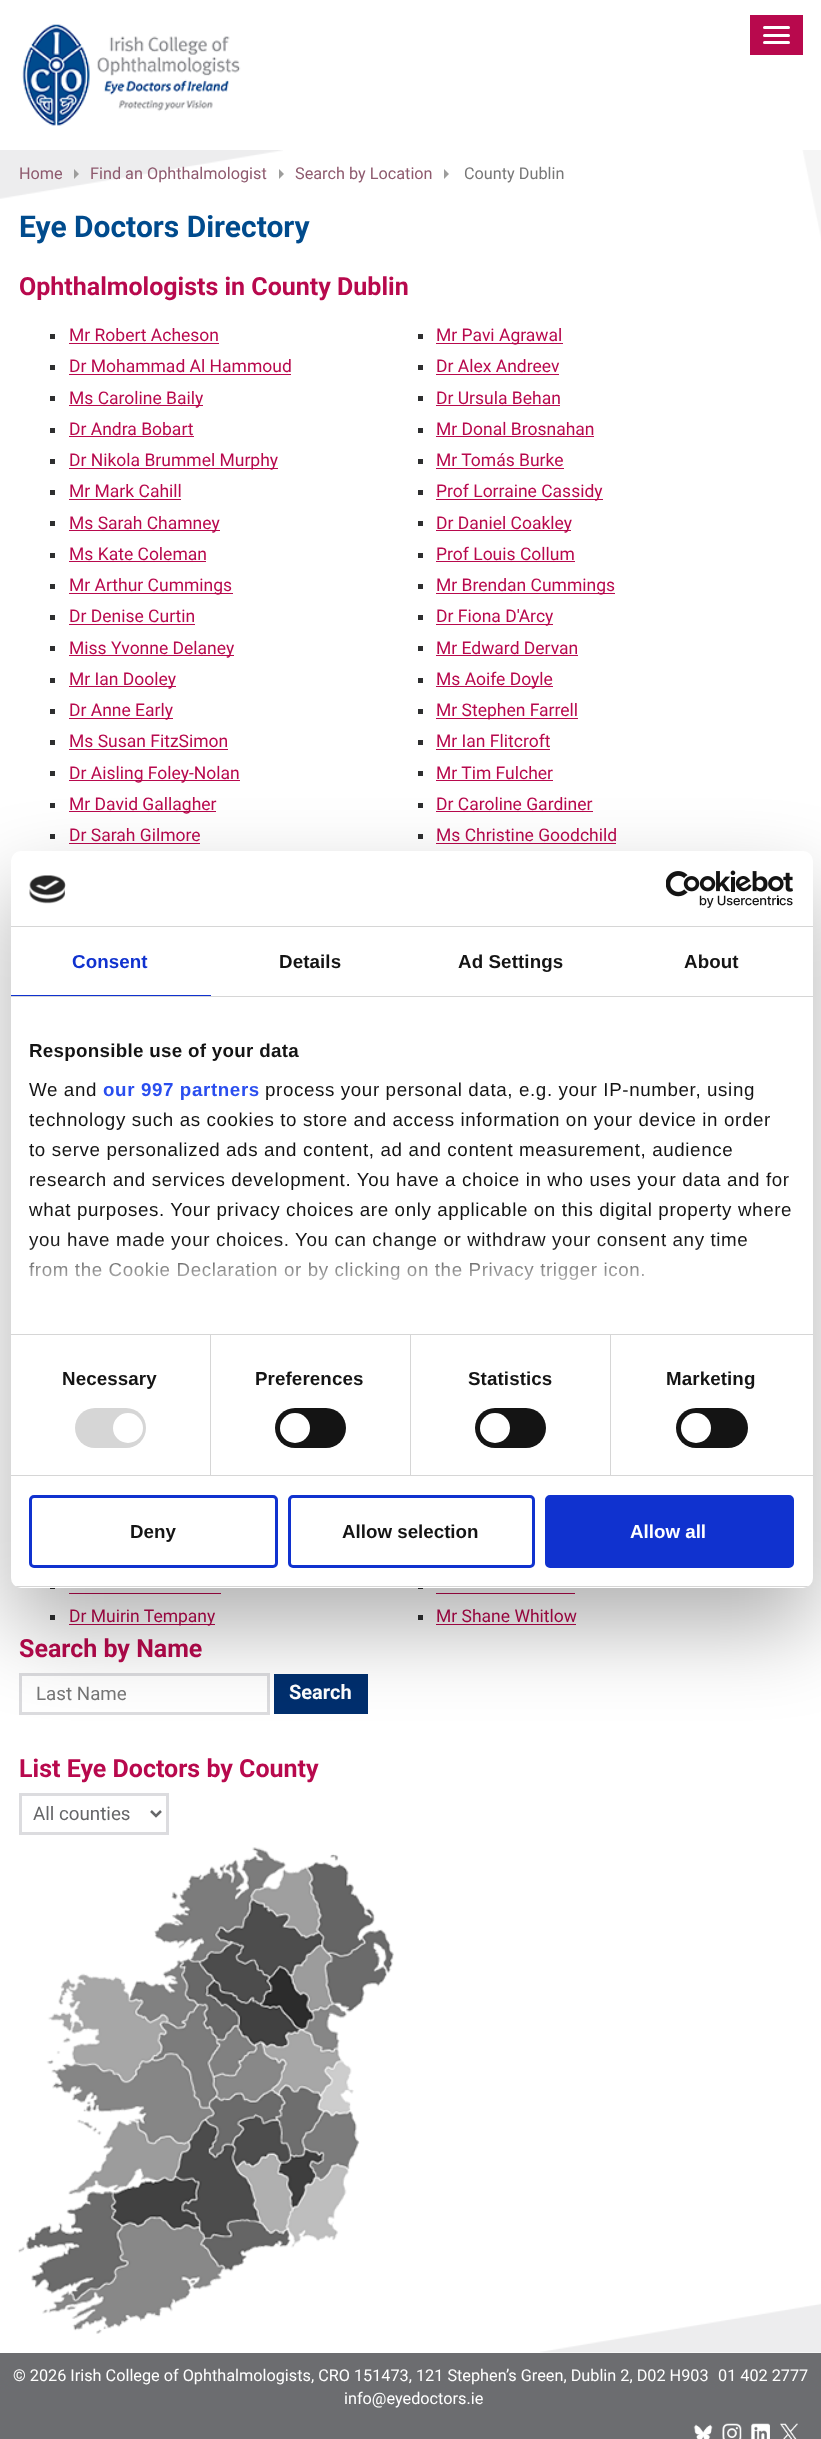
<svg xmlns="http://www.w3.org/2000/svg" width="821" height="2439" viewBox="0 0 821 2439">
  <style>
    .t1 { font: 16.25px Roboto; fill: #8e5a6e; }
    .t2 { font: 16.25px Roboto; fill: #777; }
    .t3 { font: bold 30px Roboto; fill: #004b8d; }
    .t4 { font: bold 25px Roboto; fill: #b8094d; }
    .t5 { font: 17.5px Roboto; fill: #b8094d; }
    .t6 { font: 18.75px Roboto; fill: #777; }
    .t7 { font: bold 20px Roboto; fill: #fff; }
    .t8 { font: 18.75px Roboto; fill: #666769; }
    .t9 { font: bold 18.75px Liberation Sans; letter-spacing: 0.1px; fill: #1032cf; }
    .t10 { font: bold 18.75px Liberation Sans; letter-spacing: 0.1px; fill: #141414; }
    .t11 { font: bold 18.75px Liberation Sans; letter-spacing: 0.3px; fill: #141414; }
    .t12 { font: 18.75px Liberation Sans; letter-spacing: 0.62px; fill: #141414; }
    .t13 { font: bold 18.75px Liberation Sans; letter-spacing: 0.62px; fill: #2a4eef; }
    .t14 { font: bold 18.75px Liberation Sans; fill: #141414; }
    .t15 { font: bold 18.75px Liberation Sans; fill: #fff; }
    .t16 { font: 16.25px Roboto; fill: #fff; }
  </style>
  <defs>
    <linearGradient id="g1" gradientUnits="userSpaceOnUse" x1="403" y1="1334" x2="403" y2="1240"><stop offset="0" stop-color="#fff"/><stop offset="0.5" stop-color="#fff" stop-opacity="0.8"/><stop offset="1" stop-color="#fff" stop-opacity="0"/></linearGradient>
    <clipPath id="clip1"><rect x="11" y="851" width="802" height="737" rx="10"/></clipPath>
  </defs>
  <rect width="100%" height="100%" fill="#fff"/>
  <image x="22" y="24" width="219" height="102" href="images/1.png"/>
  <rect x="750" y="15" width="53" height="40" fill="#b8094d"/>
  <rect x="763" y="26" width="27" height="3" rx="1.5" fill="#fff"/>
  <rect x="763" y="34" width="27" height="3" rx="1.5" fill="#fff"/>
  <rect x="763" y="41" width="27" height="3" rx="1.5" fill="#fff"/>
  <image x="0" y="150" width="283" height="49" href="images/2.png"/>
  <image x="540" y="150" width="281" height="2203" href="images/3.png"/>
  <text x="19" y="179" class="t1">Home</text>
  <path d="M74 179V169L79 174Z" fill="#9d9d9c"/>
  <text x="90" y="179" class="t1">Find an Ophthalmologist</text>
  <path d="M279 179V169L284 174Z" fill="#9d9d9c"/>
  <text x="295" y="179" class="t1">Search by Location</text>
  <path d="M444 179V169L449 174Z" fill="#9d9d9c"/>
  <text x="464" y="179" class="t2">County Dublin</text>
  <text x="19" y="237" class="t3">Eye Doctors Directory</text>
  <text x="19" y="295" class="t4">Ophthalmologists in County Dublin</text>
  <rect x="50" y="334" width="5" height="5" fill="#2e2f30"/>
  <text x="69" y="341" class="t5">Mr Robert Acheson</text>
  <rect x="69" y="343" width="150" height="1" fill="#b8094d"/>
  <rect x="418" y="334" width="5" height="5" fill="#2e2f30"/>
  <rect x="436" y="343" width="127" height="1" fill="#b8094d"/>
  <text x="436" y="341" class="t5">Mr Pavi Agrawal</text>
  <rect x="50" y="365" width="5" height="5" fill="#2e2f30"/>
  <text x="69" y="372" class="t5">Dr Mohammad Al Hammoud</text>
  <rect x="69" y="374" width="222" height="1" fill="#b8094d"/>
  <rect x="418" y="365" width="5" height="5" fill="#2e2f30"/>
  <text x="436" y="372" class="t5">Dr Alex Andreev</text>
  <rect x="436" y="374" width="123" height="1" fill="#b8094d"/>
  <rect x="50" y="396" width="5" height="5" fill="#2e2f30"/>
  <rect x="69" y="405" width="134" height="1" fill="#b8094d"/>
  <text x="69" y="404" class="t5">Ms Caroline Baily</text>
  <rect x="418" y="396" width="5" height="5" fill="#2e2f30"/>
  <text x="436" y="404" class="t5">Dr Ursula Behan</text>
  <rect x="436" y="405" width="124" height="1" fill="#b8094d"/>
  <rect x="50" y="428" width="5" height="5" fill="#2e2f30"/>
  <text x="69" y="435" class="t5">Dr Andra Bobart</text>
  <rect x="69" y="436" width="125" height="1" fill="#b8094d"/>
  <rect x="418" y="428" width="5" height="5" fill="#2e2f30"/>
  <text x="436" y="435" class="t5">Mr Donal Brosnahan</text>
  <rect x="436" y="436" width="158" height="1" fill="#b8094d"/>
  <rect x="50" y="459" width="5" height="5" fill="#2e2f30"/>
  <rect x="69" y="468" width="209" height="1" fill="#b8094d"/>
  <text x="69" y="466" class="t5">Dr Nikola Brummel Murphy</text>
  <rect x="418" y="459" width="5" height="5" fill="#2e2f30"/>
  <text x="436" y="466" class="t5">Mr Tomás Burke</text>
  <rect x="436" y="468" width="128" height="1" fill="#b8094d"/>
  <rect x="50" y="490" width="5" height="5" fill="#2e2f30"/>
  <text x="69" y="497" class="t5">Mr Mark Cahill</text>
  <rect x="69" y="499" width="112" height="1" fill="#b8094d"/>
  <rect x="418" y="490" width="5" height="5" fill="#2e2f30"/>
  <rect x="436" y="499" width="167" height="1" fill="#b8094d"/>
  <text x="436" y="497" class="t5">Prof Lorraine Cassidy</text>
  <rect x="50" y="521" width="5" height="5" fill="#2e2f30"/>
  <rect x="69" y="530" width="151" height="1" fill="#b8094d"/>
  <text x="69" y="529" class="t5">Ms Sarah Chamney</text>
  <rect x="418" y="521" width="5" height="5" fill="#2e2f30"/>
  <rect x="436" y="530" width="135" height="1" fill="#b8094d"/>
  <text x="436" y="529" class="t5">Dr Daniel Coakley</text>
  <rect x="50" y="553" width="5" height="5" fill="#2e2f30"/>
  <text x="69" y="560" class="t5">Ms Kate Coleman</text>
  <rect x="69" y="561" width="137" height="1" fill="#b8094d"/>
  <rect x="418" y="553" width="5" height="5" fill="#2e2f30"/>
  <text x="436" y="560" class="t5">Prof Louis Collum</text>
  <rect x="436" y="561" width="139" height="1" fill="#b8094d"/>
  <rect x="50" y="584" width="5" height="5" fill="#2e2f30"/>
  <rect x="69" y="593" width="164" height="1" fill="#b8094d"/>
  <text x="69" y="591" class="t5">Mr Arthur Cummings</text>
  <rect x="418" y="584" width="5" height="5" fill="#2e2f30"/>
  <rect x="436" y="593" width="179" height="1" fill="#b8094d"/>
  <text x="436" y="591" class="t5">Mr Brendan Cummings</text>
  <rect x="50" y="615" width="5" height="5" fill="#2e2f30"/>
  <text x="69" y="622" class="t5">Dr Denise Curtin</text>
  <rect x="69" y="624" width="126" height="1" fill="#b8094d"/>
  <rect x="418" y="615" width="5" height="5" fill="#2e2f30"/>
  <rect x="436" y="624" width="117" height="1" fill="#b8094d"/>
  <text x="436" y="622" class="t5">Dr Fiona D'Arcy</text>
  <rect x="50" y="646" width="5" height="5" fill="#2e2f30"/>
  <rect x="69" y="655" width="165" height="1" fill="#b8094d"/>
  <text x="69" y="654" class="t5">Miss Yvonne Delaney</text>
  <rect x="418" y="646" width="5" height="5" fill="#2e2f30"/>
  <text x="436" y="654" class="t5">Mr Edward Dervan</text>
  <rect x="436" y="655" width="142" height="1" fill="#b8094d"/>
  <rect x="50" y="678" width="5" height="5" fill="#2e2f30"/>
  <rect x="69" y="686" width="107" height="1" fill="#b8094d"/>
  <text x="69" y="685" class="t5">Mr Ian Dooley</text>
  <rect x="418" y="678" width="5" height="5" fill="#2e2f30"/>
  <rect x="436" y="686" width="117" height="1" fill="#b8094d"/>
  <text x="436" y="685" class="t5">Ms Aoife Doyle</text>
  <rect x="50" y="709" width="5" height="5" fill="#2e2f30"/>
  <rect x="69" y="718" width="104" height="1" fill="#b8094d"/>
  <text x="69" y="716" class="t5">Dr Anne Early</text>
  <rect x="418" y="709" width="5" height="5" fill="#2e2f30"/>
  <rect x="436" y="718" width="142" height="1" fill="#b8094d"/>
  <text x="436" y="716" class="t5">Mr Stephen Farrell</text>
  <rect x="50" y="740" width="5" height="5" fill="#2e2f30"/>
  <text x="69" y="747" class="t5">Ms Susan FitzSimon</text>
  <rect x="69" y="749" width="159" height="1" fill="#b8094d"/>
  <rect x="418" y="740" width="5" height="5" fill="#2e2f30"/>
  <text x="436" y="747" class="t5">Mr Ian Flitcroft</text>
  <rect x="436" y="749" width="114" height="1" fill="#b8094d"/>
  <rect x="50" y="771" width="5" height="5" fill="#2e2f30"/>
  <rect x="69" y="780" width="171" height="1" fill="#b8094d"/>
  <text x="69" y="779" class="t5">Dr Aisling Foley-Nolan</text>
  <rect x="418" y="771" width="5" height="5" fill="#2e2f30"/>
  <text x="436" y="779" class="t5">Mr Tim Fulcher</text>
  <rect x="436" y="780" width="117" height="1" fill="#b8094d"/>
  <rect x="50" y="803" width="5" height="5" fill="#2e2f30"/>
  <rect x="69" y="811" width="147" height="1" fill="#b8094d"/>
  <text x="69" y="810" class="t5">Mr David Gallagher</text>
  <rect x="418" y="803" width="5" height="5" fill="#2e2f30"/>
  <text x="436" y="810" class="t5">Dr Caroline Gardiner</text>
  <rect x="436" y="811" width="157" height="1" fill="#b8094d"/>
  <rect x="50" y="834" width="5" height="5" fill="#2e2f30"/>
  <text x="69" y="841" class="t5">Dr Sarah Gilmore</text>
  <rect x="69" y="843" width="131" height="1" fill="#b8094d"/>
  <rect x="418" y="834" width="5" height="5" fill="#2e2f30"/>
  <text x="436" y="841" class="t5">Ms Christine Goodchild</text>
  <rect x="436" y="843" width="180" height="1" fill="#b8094d"/>
  <rect x="50" y="1588" width="5" height="1" fill="#2e2f30"/>
  <rect x="69" y="1593" width="152" height="1" fill="#b8094d"/>
  <rect x="418" y="1588" width="5" height="1" fill="#2e2f30"/>
  <rect x="436" y="1593" width="139" height="1" fill="#b8094d"/>
  <rect x="50" y="1615" width="5" height="5" fill="#2e2f30"/>
  <rect x="69" y="1624" width="146" height="1" fill="#b8094d"/>
  <text x="69" y="1622" class="t5">Dr Muirin Tempany</text>
  <rect x="418" y="1615" width="5" height="5" fill="#2e2f30"/>
  <text x="436" y="1622" class="t5">Mr Shane Whitlow</text>
  <rect x="436" y="1624" width="140" height="1" fill="#b8094d"/>
  <text x="19" y="1657" class="t4">Search by Name</text>
  <rect x="20.5" y="1674.5" width="248" height="39" fill="none" stroke="#dcdcdf" stroke-width="3"/>
  <text x="36" y="1700" class="t6">Last Name</text>
  <rect x="274" y="1674" width="94" height="40" fill="#002f6e"/>
  <text x="289" y="1699" class="t7">Search</text>
  <text x="19" y="1777" class="t4">List Eye Doctors by County</text>
  <rect x="20.5" y="1794.5" width="147" height="39" fill="none" stroke="#dcdcdf" stroke-width="3"/>
  <path d="M151 1811L156 1816L161 1811" fill="none" stroke="#666769" stroke-width="2.5"/>
  <text x="33" y="1820" class="t8">All counties</text>
  <image x="18" y="1847" width="376" height="487" href="images/4.png"/>
  <rect x="11" y="891" width="802" height="737" rx="10" fill="#0000004d" filter="blur(42.5px)"/>
  <rect x="11" y="851" width="802" height="737" rx="10" fill="#fff"/>
  <rect x="11" y="926" width="802" height="1" fill="#d6d6d6"/>
  <image x="29" y="875" width="37" height="29" href="images/5.png"/>
  <image x="666" y="870" width="127" height="38" href="images/6.png"/>
  <rect x="11" y="996" width="802" height="1" fill="#d6d6d6"/>
  <rect x="11" y="995" width="200" height="1" fill="#1032cf"/>
  <text x="72" y="968" class="t9">Consent</text>
  <text x="279" y="968" class="t10">Details</text>
  <text x="458" y="968" class="t10">Ad Settings</text>
  <text x="684" y="968" class="t10">About</text>
  <rect x="11" y="1334" width="802" height="1" fill="#d6d6d6"/>
  <text x="29" y="1057" class="t11">Responsible use of your data</text>
  <text x="29" y="1096" class="t12">We and</text>
  <text x="103" y="1096" class="t13">our 997 partners</text>
  <text x="265" y="1096" class="t12">process your personal data, e.g. your IP-number, using</text>
  <text x="29" y="1126" class="t12">technology such as cookies to store and access information on your device in order</text>
  <text x="29" y="1156" class="t12">to serve personalized ads and content, ad and content measurement, audience</text>
  <text x="29" y="1186" class="t12">research and services development. You have a choice in who uses your data and for</text>
  <text x="29" y="1216" class="t12">what purposes. Your privacy choices are only applicable on this digital property where</text>
  <text x="29" y="1246" class="t12">you have made your choices. You can change or withdraw your consent any time</text>
  <text x="29" y="1276" class="t12">from the Cookie Declaration or by clicking on the Privacy trigger icon.</text>
  <rect x="29" y="1241" width="718" height="39" fill="url(#g1)"/>
  <rect x="11" y="1475" width="802" height="1" fill="#d6d6d6"/>
  <rect x="210" y="1335" width="1" height="140" fill="#d6d6d6"/>
  <text x="62" y="1385" class="t10">Necessary</text>
  <rect x="75" y="1408" width="71" height="40" rx="20" fill="#d6d6d6"/>
  <circle cx="128" cy="1428" r="15" fill="#fff"/>
  <rect x="410" y="1335" width="1" height="140" fill="#d6d6d6"/>
  <text x="255" y="1385" class="t10">Preferences</text>
  <rect x="275" y="1408" width="71" height="40" rx="20" fill="#141414"/>
  <circle cx="295" cy="1428" r="15" fill="#fff"/>
  <rect x="610" y="1335" width="1" height="140" fill="#d6d6d6"/>
  <text x="468" y="1385" class="t10">Statistics</text>
  <rect x="475" y="1408" width="71" height="40" rx="20" fill="#141414"/>
  <circle cx="495" cy="1428" r="15" fill="#fff"/>
  <text x="666" y="1385" class="t10">Marketing</text>
  <rect x="676" y="1408" width="72" height="40" rx="20" fill="#141414"/>
  <circle cx="696" cy="1428" r="15" fill="#fff"/>
  <g clip-path="url(#clip1)">
    <rect x="11" y="1586" width="802" height="1" fill="#d6d6d6"/>
  </g>
  <rect x="30.5" y="1496.5" width="246" height="70" rx="3.5" fill="none" stroke="#1032cf" stroke-width="3"/>
  <text x="130" y="1538" class="t14">Deny</text>
  <rect x="289.5" y="1496.5" width="244" height="70" rx="3.5" fill="none" stroke="#1032cf" stroke-width="3"/>
  <text x="342" y="1538" class="t14">Allow selection</text>
  <rect x="546.5" y="1496.5" width="246" height="70" rx="3.5" fill="#1032cf" stroke="#1032cf" stroke-width="3"/>
  <text x="630" y="1538" class="t15">Allow all</text>
  <rect x="0" y="2353" width="821" height="86" fill="#6c6d70"/>
  <text x="13" y="2381" class="t16">© 2026 Irish College of Ophthalmologists, CRO 151473, 121 Stephen’s Green, Dublin 2, D02 H903</text>
  <text x="718" y="2381" class="t16">01 402 2777</text>
  <text x="344" y="2404" class="t16">info@eyedoctors.ie</text>
  <image x="693" y="2424" width="20" height="15" href="images/7.png"/>
  <image x="722" y="2423" width="20" height="16" href="images/8.png"/>
  <image x="751" y="2423" width="19" height="16" href="images/9.png"/>
  <image x="780" y="2423" width="18" height="16" href="images/10.png"/>
</svg>
